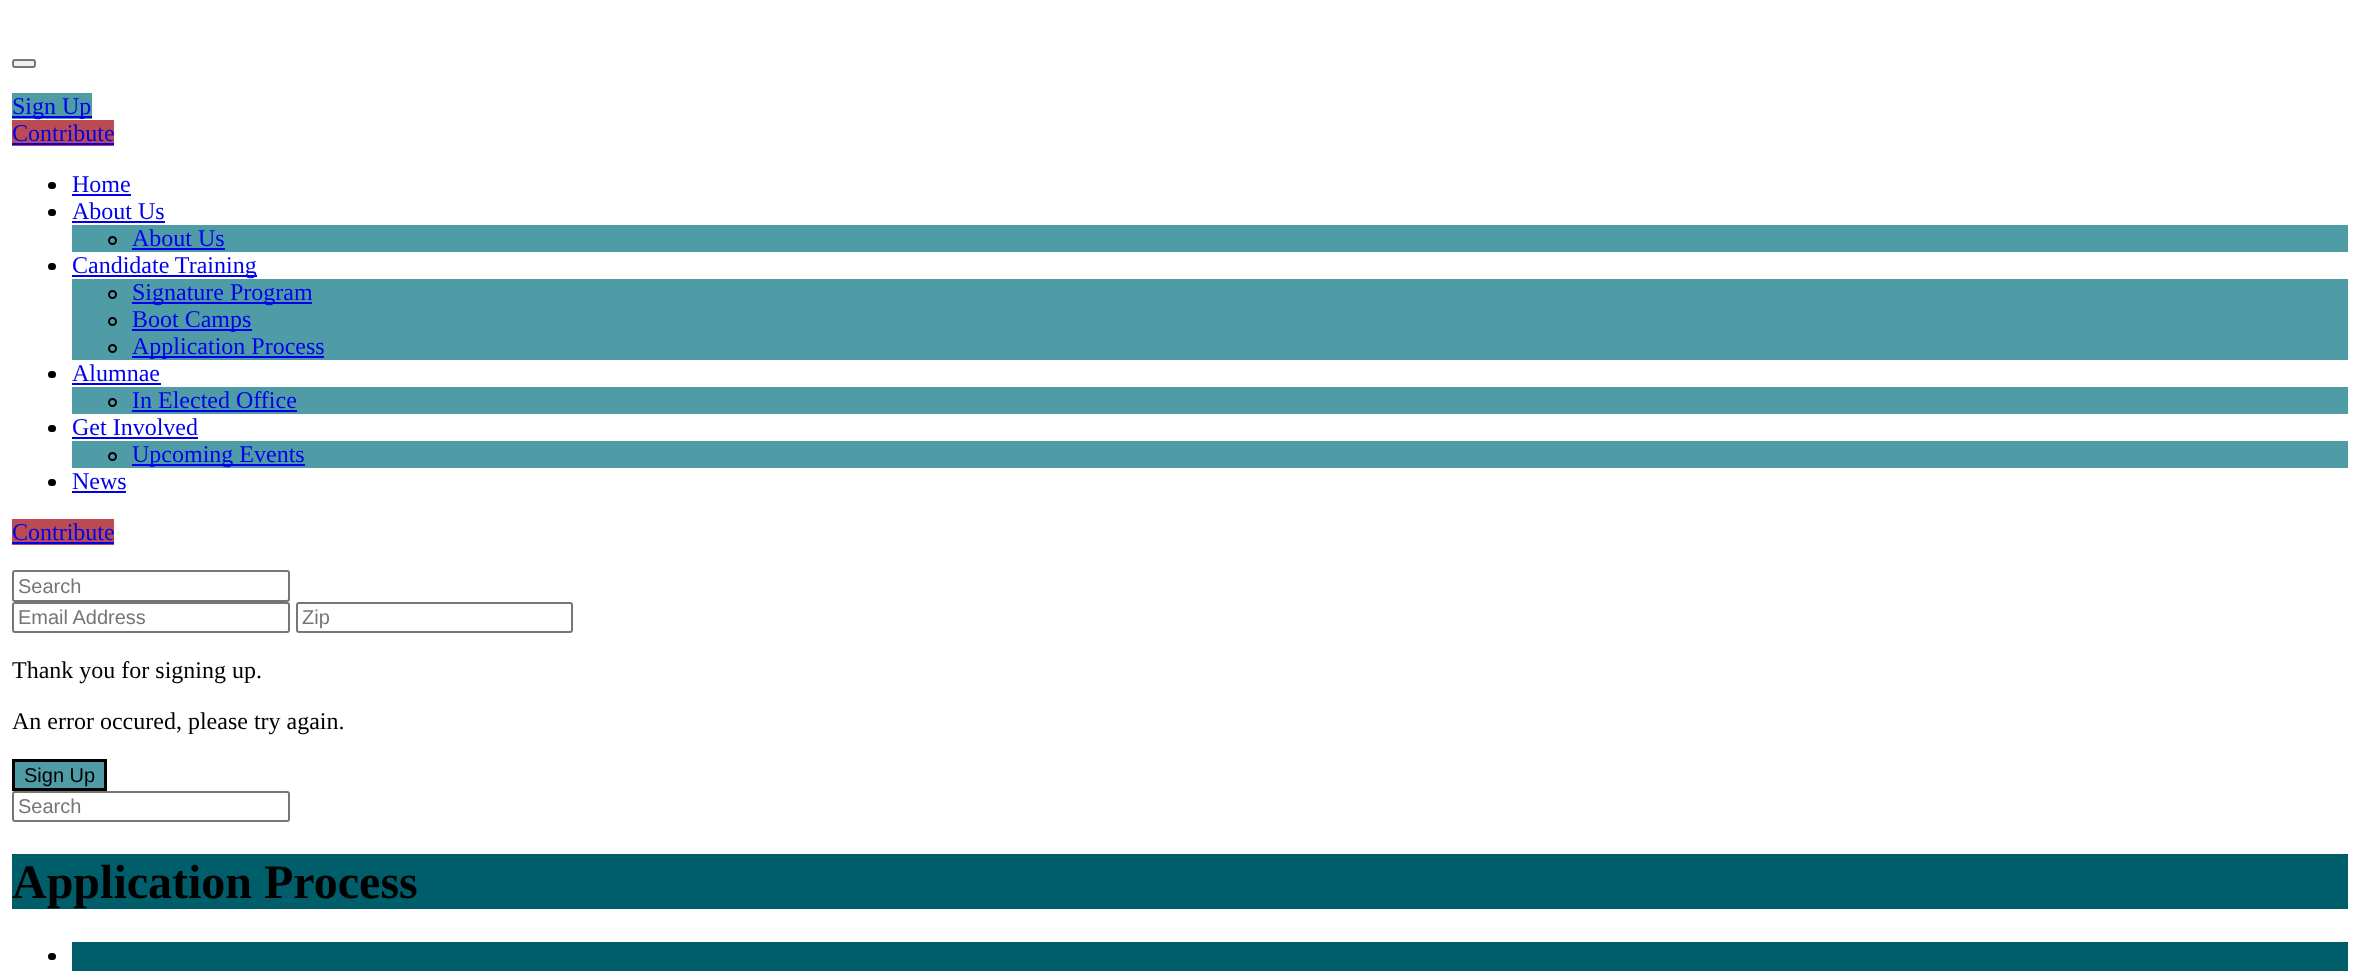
<svg xmlns="http://www.w3.org/2000/svg" width="2359" height="971" viewBox="0 0 2359 971">
  <style>
    .t1 { font: 24px Liberation Serif; fill: #00e; }
    .t2 { font: 20px Liberation Sans; fill: #757575; }
    .t3 { font: 24px Liberation Serif; fill: #000; }
    .t4 { font: 20px Liberation Sans; fill: #000; }
    .t5 { font: bold 48px Liberation Serif; fill: #000; }
  </style>
  <rect width="100%" height="100%" fill="#fff"/>
  <rect x="13" y="60" width="22" height="7" rx="2" fill="#efefef" stroke="#767676" stroke-width="2"/>
  <rect x="12" y="93" width="80" height="26" fill="#4f9ca6"/>
  <rect x="12" y="116" width="80" height="2" fill="#00e"/>
  <text x="12" y="114" class="t1">Sign Up</text>
  <rect x="12" y="120" width="102" height="26" fill="#ba4b52"/>
  <text x="12" y="141" class="t1">Contribute</text>
  <rect x="12" y="143" width="102" height="2" fill="#00e"/>
  <rect x="48" y="182" width="8" height="7" rx="3.5" fill="#000"/>
  <text x="72" y="192" class="t1">Home</text>
  <rect x="72" y="194" width="59" height="2" fill="#00e"/>
  <rect x="48" y="209" width="8" height="7" rx="3.5" fill="#000"/>
  <text x="72" y="219" class="t1">About Us</text>
  <rect x="72" y="221" width="93" height="2" fill="#00e"/>
  <rect x="72" y="225" width="2276" height="27" fill="#4f9ca6"/>
  <circle cx="112.5" cy="240.5" r="3.5" fill="none" stroke="#000" stroke-width="2"/>
  <text x="132" y="246" class="t1">About Us</text>
  <rect x="132" y="248" width="93" height="2" fill="#00e"/>
  <rect x="48" y="263" width="8" height="7" rx="3.5" fill="#000"/>
  <rect x="72" y="275" width="185" height="2" fill="#00e"/>
  <text x="72" y="273" class="t1">Candidate Training</text>
  <rect x="72" y="279" width="2276" height="81" fill="#4f9ca6"/>
  <circle cx="112.5" cy="294.5" r="3.5" fill="none" stroke="#000" stroke-width="2"/>
  <rect x="132" y="302" width="180" height="2" fill="#00e"/>
  <text x="132" y="300" class="t1">Signature Program</text>
  <circle cx="112.5" cy="321.5" r="3.5" fill="none" stroke="#000" stroke-width="2"/>
  <rect x="132" y="329" width="120" height="2" fill="#00e"/>
  <text x="132" y="327" class="t1">Boot Camps</text>
  <circle cx="112.5" cy="348.5" r="3.5" fill="none" stroke="#000" stroke-width="2"/>
  <rect x="132" y="356" width="192" height="2" fill="#00e"/>
  <text x="132" y="354" class="t1">Application Process</text>
  <rect x="48" y="371" width="8" height="7" rx="3.5" fill="#000"/>
  <text x="72" y="381" class="t1">Alumnae</text>
  <rect x="72" y="383" width="89" height="2" fill="#00e"/>
  <rect x="72" y="387" width="2276" height="27" fill="#4f9ca6"/>
  <circle cx="112.5" cy="402.5" r="3.5" fill="none" stroke="#000" stroke-width="2"/>
  <text x="132" y="408" class="t1">In Elected Office</text>
  <rect x="132" y="410" width="165" height="2" fill="#00e"/>
  <rect x="48" y="425" width="8" height="7" rx="3.5" fill="#000"/>
  <text x="72" y="435" class="t1">Get Involved</text>
  <rect x="72" y="437" width="126" height="2" fill="#00e"/>
  <rect x="72" y="441" width="2276" height="27" fill="#4f9ca6"/>
  <circle cx="112.5" cy="456.5" r="3.5" fill="none" stroke="#000" stroke-width="2"/>
  <rect x="132" y="464" width="173" height="2" fill="#00e"/>
  <text x="132" y="462" class="t1">Upcoming Events</text>
  <rect x="48" y="479" width="8" height="7" rx="3.5" fill="#000"/>
  <text x="72" y="489" class="t1">News</text>
  <rect x="72" y="491" width="54" height="2" fill="#00e"/>
  <rect x="12" y="519" width="102" height="26" fill="#ba4b52"/>
  <text x="12" y="540" class="t1">Contribute</text>
  <rect x="12" y="542" width="102" height="2" fill="#00e"/>
  <rect x="13" y="571" width="276" height="30" rx="2" fill="none" stroke="#767676" stroke-width="2"/>
  <text x="18" y="593" class="t2">Search</text>
  <rect x="13" y="603" width="276" height="29" rx="2" fill="none" stroke="#767676" stroke-width="2"/>
  <text x="18" y="624" class="t2">Email Address</text>
  <rect x="297" y="603" width="275" height="29" rx="2" fill="none" stroke="#767676" stroke-width="2"/>
  <text x="302" y="624" class="t2">Zip</text>
  <text x="12" y="678" class="t3">Thank you for signing up.</text>
  <text x="12" y="729" class="t3">An error occured, please try again.</text>
  <rect x="13.5" y="760.5" width="92" height="29" fill="#4f9ca6" stroke="#000" stroke-width="3"/>
  <text x="24" y="782" class="t4">Sign Up</text>
  <rect x="13" y="792" width="276" height="29" rx="2" fill="none" stroke="#767676" stroke-width="2"/>
  <text x="18" y="813" class="t2">Search</text>
  <rect x="12" y="854" width="2336" height="55" fill="#005e6b"/>
  <text x="12" y="898" class="t5">Application Process</text>
  <rect x="72" y="942" width="2276" height="29" fill="#005e6b"/>
  <rect x="48" y="953" width="8" height="7" rx="3.5" fill="#000"/>
</svg>
